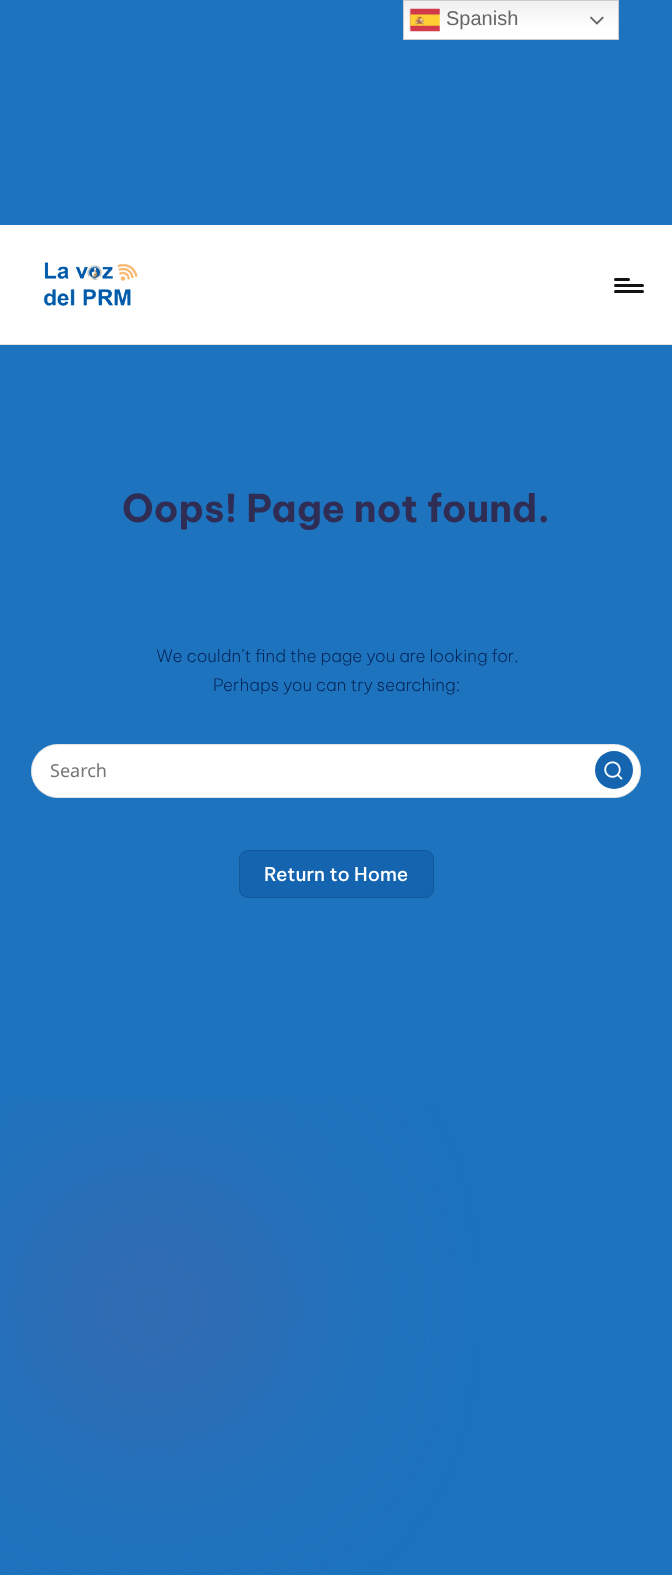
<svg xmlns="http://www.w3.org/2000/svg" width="672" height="1575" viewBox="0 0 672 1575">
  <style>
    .t1 { font: 20px Liberation Sans; fill: #666; }
    .t2 { font: bold 38.2px Be Vietnam Pro; fill: #302d55; }
    .t3 { font: 200 17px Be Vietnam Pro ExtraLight; fill: #002050; }
    .t4 { font: 18px Noto Sans; fill: #757575; }
    .t5 { font: 500 19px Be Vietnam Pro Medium; fill: #fff; }
  </style>
  <defs>
    <linearGradient id="g1" gradientUnits="userSpaceOnUse" x1="511" y1="0" x2="511" y2="40"><stop offset="0" stop-color="#efefef"/><stop offset="0.7" stop-color="#fff"/></linearGradient>
    <clipPath id="clip1"><rect x="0" y="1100" width="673" height="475"/></clipPath>
  </defs>
  <rect width="100%" height="100%" fill="#1e73be"/>
  <rect x="404" y="1" width="214" height="38" fill="url(#g1)"/>
  <rect x="403.5" y="0.5" width="215" height="39" fill="none" stroke="#ccc"/>
  <image x="409" y="8" width="31" height="24" href="images/1.png"/>
  <text x="446" y="25" class="t1">Spanish</text>
  <image x="590" y="16" width="14" height="9" href="images/2.png"/>
  <rect x="0" y="225" width="672" height="119" fill="#fff"/>
  <rect x="0" y="344" width="672" height="1" fill="#e3e3e3"/>
  <image x="43" y="262" width="95" height="44" href="images/3.png"/>
  <rect x="614" y="284" width="30" height="3" rx="1.5" fill="#131315"/>
  <rect x="614" y="278" width="16" height="3" rx="1.5" fill="#131315"/>
  <rect x="614" y="290" width="30" height="3" rx="1.5" fill="#131315"/>
  <text x="122" y="522" class="t2">Oops! Page not found.</text>
  <text x="156" y="662" class="t3">We couldn’t find the page you are looking for.</text>
  <text x="213" y="691" class="t3">Perhaps you can try searching:</text>
  <rect x="31" y="744" width="610" height="54" rx="27" fill="#fff"/>
  <rect x="31.5" y="744.5" width="609" height="53" rx="26.5" fill="none" stroke="#b9b9b966"/>
  <text x="50" y="777" class="t4">Search</text>
  <circle cx="614" cy="770" r="19" fill="#1464af"/>
  <image x="604" y="761" width="19" height="19" href="images/4.png"/>
  <rect x="239" y="850" width="195" height="48" rx="9" fill="#1464af"/>
  <rect x="239.5" y="850.5" width="194" height="47" rx="8.5" fill="none" stroke="#0000001f"/>
  <text x="264" y="881" class="t5">Return to Home</text>
  <g clip-path="url(#clip1)">
    <rect x="0" y="1154" width="305" height="305" rx="152.5" fill="#336bb1" filter="blur(80px)"/>
  </g>
</svg>
